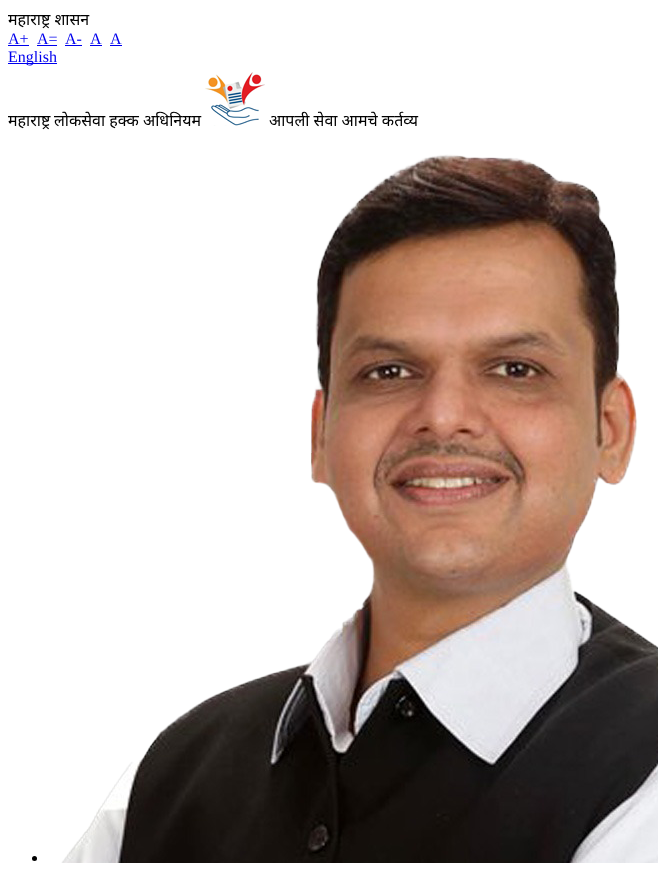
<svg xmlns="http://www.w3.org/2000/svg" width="658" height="888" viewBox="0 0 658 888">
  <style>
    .t1 { font: 16px Noto Sans; fill: #000; }
    .t2 { font: 16px Liberation Serif; fill: #00e; }
  </style>
  <rect width="100%" height="100%" fill="#fff"/>
  <text x="8" y="25" class="t1">महाराष्ट्र शासन</text>
  <text x="8" y="44" class="t2">A+</text>
  <rect x="8" y="45" width="21" height="1" fill="#00e"/>
  <text x="37" y="44" class="t2">A=</text>
  <rect x="37" y="45" width="20" height="1" fill="#00e"/>
  <text x="65" y="44" class="t2">A-</text>
  <rect x="65" y="45" width="17" height="1" fill="#00e"/>
  <text x="90" y="44" class="t2">A</text>
  <rect x="90" y="45" width="12" height="1" fill="#00e"/>
  <text x="110" y="44" class="t2">A</text>
  <rect x="110" y="45" width="12" height="1" fill="#00e"/>
  <rect x="8" y="63" width="49" height="1" fill="#00e"/>
  <text x="8" y="62" class="t2">English</text>
  <text x="8" y="126" class="t1">महाराष्ट्र</text>
  <text x="54" y="126" class="t1">लोकसेवा हक्क अधिनियम</text>
  <image x="205" y="72" width="60" height="54" href="images/1.png"/>
  <text x="269" y="126" class="t1">आपली सेवा आमचे कर्तव्य</text>
  <circle cx="34.5" cy="858.5" r="2.5" fill="#000"/>
  <image x="61" y="154" width="597" height="709" href="images/2.png"/>
</svg>
